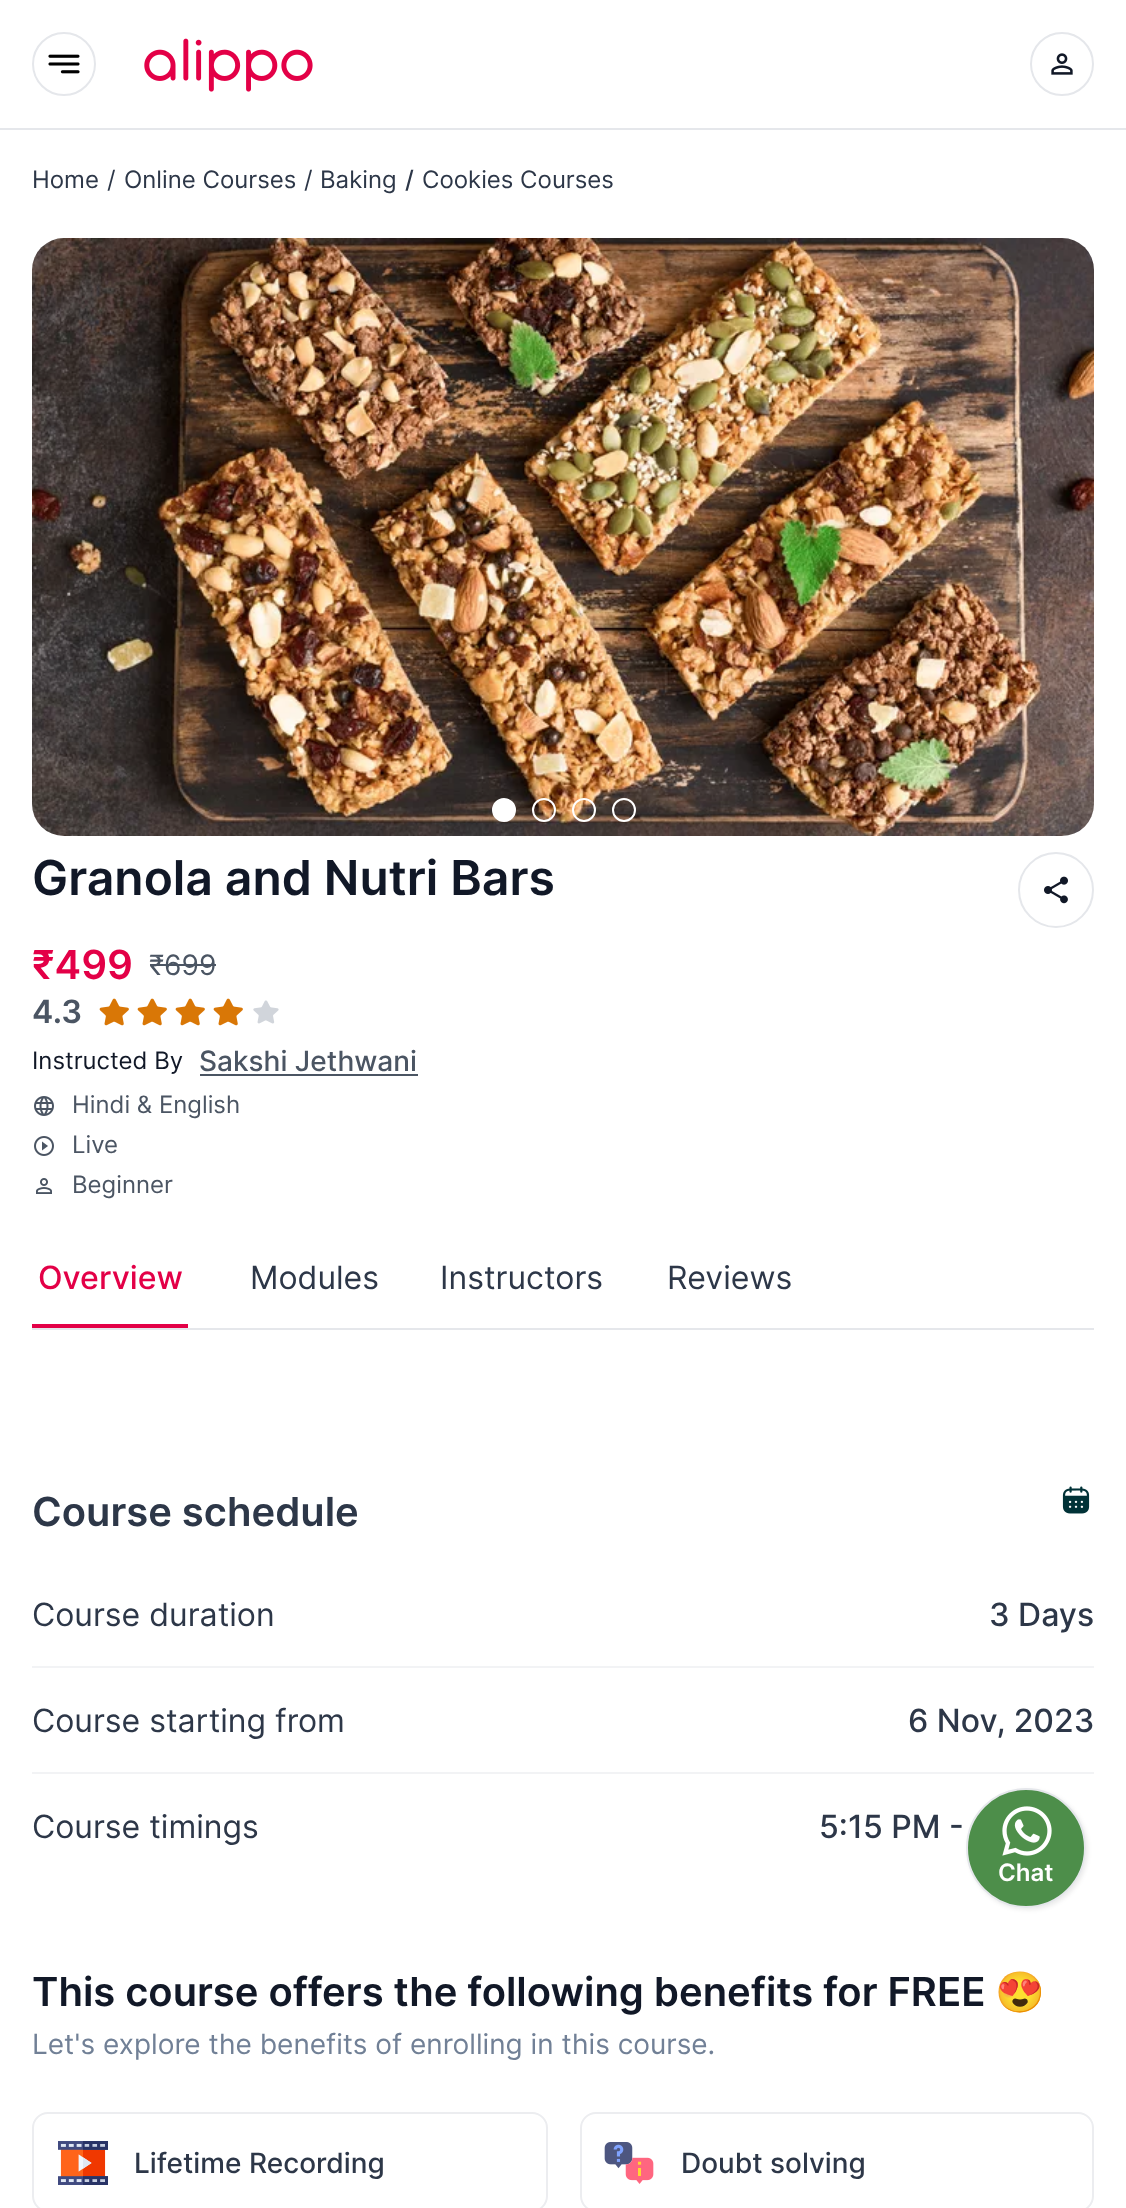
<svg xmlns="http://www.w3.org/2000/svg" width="1126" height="2208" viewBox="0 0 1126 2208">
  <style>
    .t1 { font: 24px Inter; fill: #2d3748; }
    .t2 { font: 500 24px Inter; fill: #2d3748; }
    .t3 { font: 600 48px Inter; fill: #111827; }
    .t4 { font: 600 40px Inter; fill: #e30047; }
    .t5 { font: 28px Inter; fill: #4b5563; }
    .t6 { font: 600 32px Inter; fill: #4b5563; }
    .t7 { font: 24px Inter; fill: #111827; }
    .t8 { font: 500 28px Inter; fill: #4b5563; }
    .t9 { font: 24px Inter; fill: #4b5563; }
    .t10 { font: 500 32px Inter; fill: #e30047; }
    .t11 { font: 32px Inter; fill: #2d3748; }
    .t12 { font: 600 40px Inter; fill: #2d3748; }
    .t13 { font: 500 32px Inter; fill: #2d3748; }
    .t14 { font: 600 40px Inter; fill: #111827; }
    .t15 { font: bold 40px Noto Color Emoji; fill: #111827; }
    .t16 { font: 28px Inter; fill: #718096; }
    .t17 { font: 500 28px Inter; fill: #2d3748; }
    .t18 { font: 600 24px Inter; fill: #fff; }
  </style>
  <defs>
    <clipPath id="clip1"><path d="M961 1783H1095V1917H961ZM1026 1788C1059 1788 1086 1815 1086 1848C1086 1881 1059 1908 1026 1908C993 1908 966 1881 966 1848C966 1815 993 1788 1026 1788Z" clip-rule="evenodd"/></clipPath>
  </defs>
  <rect width="100%" height="100%" fill="#fff"/>
  <rect x="0" y="128" width="1126" height="2" fill="#e5e7eb"/>
  <circle cx="64" cy="64" r="31" fill="none" stroke="#e5e7eb" stroke-width="2"/>
  <image x="48" y="54" width="32" height="20" href="images/1.png"/>
  <image x="144" y="38" width="169" height="54" href="images/2.png"/>
  <circle cx="1062" cy="64" r="31" fill="none" stroke="#e5e7eb" stroke-width="2"/>
  <image x="1051" y="53" width="22" height="22" href="images/3.png"/>
  <text x="32" y="188" class="t1">Home</text>
  <text x="107" y="188" class="t1">/</text>
  <text x="124" y="188" class="t1">Online Courses</text>
  <text x="304" y="188" class="t1">/</text>
  <text x="320" y="188" class="t1">Baking</text>
  <text x="405" y="188" class="t2">/</text>
  <text x="422" y="188" class="t1">Cookies Courses</text>
  <image x="32" y="238" width="1062" height="598" href="images/4.png"/>
  <circle cx="504" cy="810" r="11" fill="#fff" stroke="#fff" stroke-width="2"/>
  <circle cx="544" cy="810" r="11" fill="none" stroke="#fff" stroke-width="2"/>
  <circle cx="584" cy="810" r="11" fill="none" stroke="#fff" stroke-width="2"/>
  <circle cx="624" cy="810" r="11" fill="none" stroke="#fff" stroke-width="2"/>
  <text x="32" y="895" class="t3">Granola and Nutri Bars</text>
  <circle cx="1056" cy="890" r="37" fill="none" stroke="#e5e7eb" stroke-width="2"/>
  <image x="1044" y="876" width="24" height="28" href="images/5.png"/>
  <text x="32" y="979" class="t4">₹499</text>
  <text x="149" y="975" class="t5">₹699</text>
  <rect x="150" y="964" width="66" height="2" fill="#4b5563"/>
  <text x="32" y="1023" class="t6">4.3</text>
  <image x="99" y="998" width="30" height="28" href="images/6.png"/>
  <image x="137" y="998" width="30" height="28" href="images/6.png"/>
  <image x="175" y="998" width="30" height="28" href="images/6.png"/>
  <image x="213" y="998" width="30" height="28" href="images/6.png"/>
  <image x="253" y="1000" width="26" height="24" href="images/7.png"/>
  <text x="32" y="1069" class="t7">Instructed By</text>
  <text x="199" y="1071" class="t8">Sakshi Jethwani</text>
  <rect x="200" y="1074" width="218" height="2" fill="#4b5563"/>
  <image x="34" y="1096" width="20" height="20" href="images/8.png"/>
  <text x="72" y="1113" class="t9">Hindi &amp; English</text>
  <image x="34" y="1136" width="20" height="20" href="images/9.png"/>
  <text x="72" y="1153" class="t9">Live</text>
  <image x="36" y="1178" width="16" height="16" href="images/10.png"/>
  <text x="72" y="1193" class="t9">Beginner</text>
  <rect x="32" y="1328" width="1062" height="2" fill="#e5e7eb"/>
  <rect x="32" y="1324" width="156" height="4" fill="#e30047"/>
  <text x="38" y="1289" class="t10">Overview</text>
  <text x="250" y="1289" class="t11">Modules</text>
  <text x="440" y="1289" class="t11">Instructors</text>
  <text x="667" y="1289" class="t11">Reviews</text>
  <text x="32" y="1526" class="t12">Course schedule</text>
  <image x="1062" y="1486" width="28" height="28" href="images/11.png"/>
  <text x="32" y="1626" class="t11">Course duration</text>
  <text x="989" y="1626" class="t13">3 Days</text>
  <rect x="32" y="1666" width="1062" height="2" fill="#f2f3f5"/>
  <text x="32" y="1732" class="t11">Course starting from</text>
  <text x="908" y="1732" class="t13">6 Nov, 2023</text>
  <rect x="32" y="1772" width="1062" height="2" fill="#f2f3f5"/>
  <text x="32" y="1838" class="t11">Course timings</text>
  <text x="819" y="1838" class="t13">5:15 PM -</text>
  <text x="32" y="2006" class="t14">This course offers the following benefits for FREE</text>
  <text x="995" y="2006" class="t15">😍</text>
  <text x="32" y="2054" class="t16">Let's explore the benefits of enrolling in this course.</text>
  <rect x="33" y="2113" width="514" height="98" rx="15" fill="none" stroke="#ecedf0" stroke-width="2"/>
  <image x="58" y="2141" width="50" height="44" href="images/12.png"/>
  <text x="134" y="2173" class="t17">Lifetime Recording</text>
  <rect x="581" y="2113" width="512" height="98" rx="15" fill="none" stroke="#ecedf0" stroke-width="2"/>
  <image x="604" y="2142" width="50" height="42" href="images/13.png"/>
  <text x="681" y="2173" class="t17">Doubt solving</text>
  <g clip-path="url(#clip1)">
    <rect x="968" y="1790" width="120" height="120" rx="60" fill="#00000014" filter="blur(2px)"/>
  </g>
  <circle cx="1026" cy="1848" r="59" fill="#096304b8" stroke="#e5e7eb" stroke-width="2"/>
  <image x="1002" y="1806" width="50" height="50" href="images/14.png"/>
  <text x="998" y="1881" class="t18">Chat</text>
</svg>
